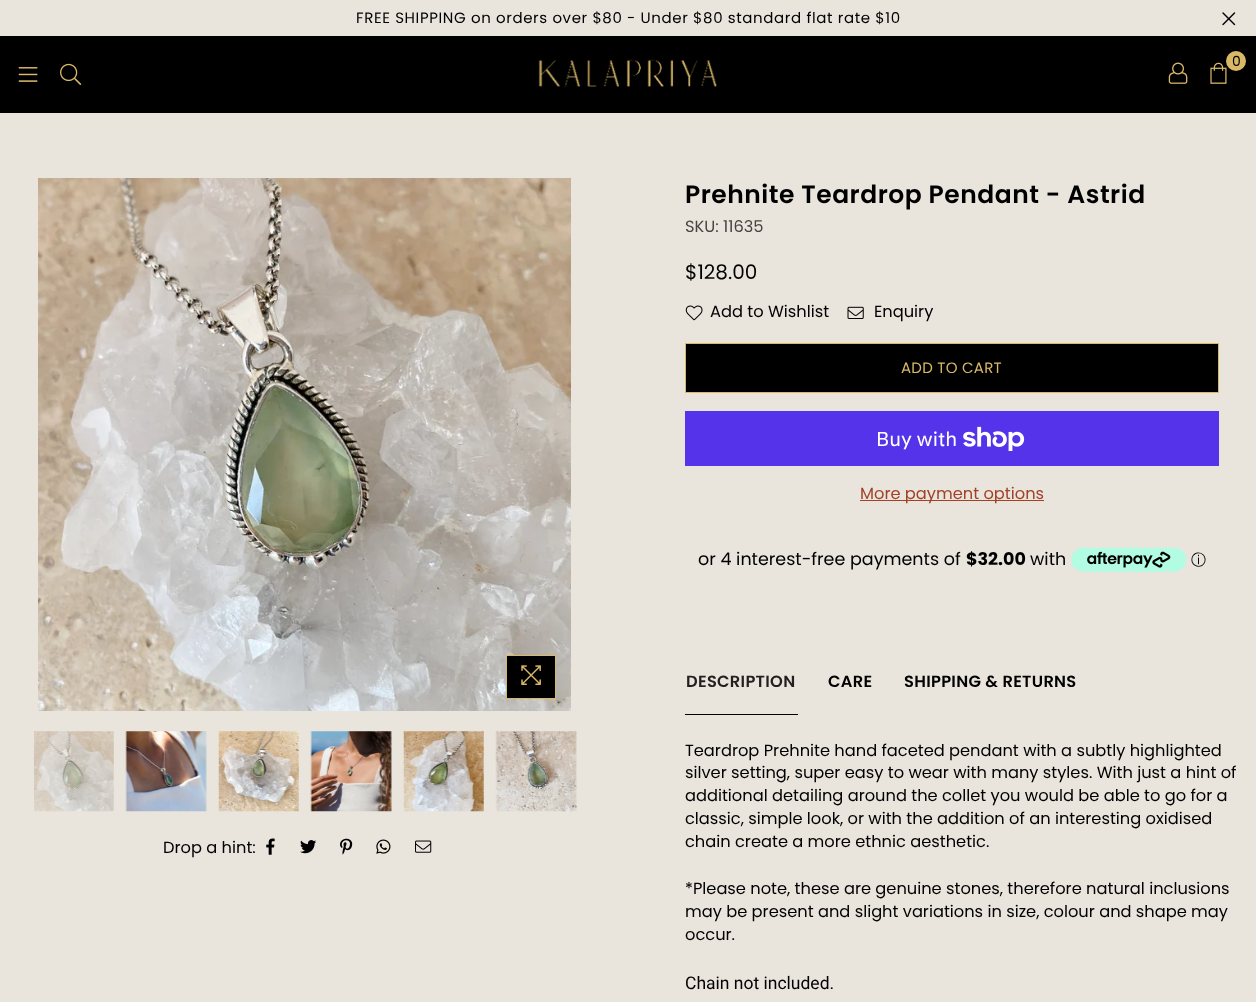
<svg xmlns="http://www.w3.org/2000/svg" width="1256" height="1002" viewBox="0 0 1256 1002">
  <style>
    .t1 { font: 15px Poppins; letter-spacing: 0.62px; fill: #000; }
    .t2 { font: 14px Poppins; fill: #000; }
    .t3 { font: 16.25px Poppins; fill: #000; }
    .t4 { font: 600 25px Poppins; letter-spacing: 0.5px; fill: #000; }
    .t5 { font: 16.25px Poppins; fill: #464542; }
    .t6 { font: 20px Poppins; fill: #000; }
    .t7 { font: 15px Poppins; letter-spacing: 0.25px; fill: #d9b868; }
    .t8 { font: 20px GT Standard; fill: #fff; }
    .t9 { font: 16.25px Poppins; fill: #a24127; }
    .t10 { font: 17.5px Poppins; fill: #000; }
    .t11 { font: bold 17.5px Poppins; fill: #000; }
    .t12 { font: 500 15px WenQuanYi Zen Hei; fill: #000; }
    .t13 { font: 600 16.25px Poppins; letter-spacing: 0.3px; fill: #231f20; }
    .t14 { font: 600 16.25px Poppins; letter-spacing: 0.3px; fill: #000; }
    .t15 { font: 17.5px Roboto; fill: #000; }
  </style>
  <rect width="100%" height="100%" fill="#e9e5dc"/>
  <text x="356" y="23" class="t1">FREE SHIPPING on orders over $80 - Under $80 standard flat rate $10</text>
  <image x="1222" y="12" width="14" height="14" href="images/1.png"/>
  <rect x="0" y="36" width="1256" height="77" fill="#000"/>
  <image x="18" y="67" width="20" height="15" href="images/2.png"/>
  <image x="60" y="63" width="22" height="22" href="images/3.png"/>
  <image x="538" y="59" width="179" height="28" href="images/4.png"/>
  <image x="1210" y="62" width="17" height="22" href="images/5.png"/>
  <circle cx="1236" cy="61" r="10" fill="#d9b868"/>
  <text x="1232" y="66" class="t2">0</text>
  <image x="1168" y="62" width="20" height="22" href="images/6.png"/>
  <image x="38" y="178" width="533" height="533" href="images/7.png"/>
  <rect x="506.5" y="655.5" width="49" height="43" fill="#000" stroke="#d9b868"/>
  <image x="521" y="665" width="20" height="20" href="images/8.png"/>
  <image x="34" y="731" width="80" height="81" href="images/9.png"/>
  <image x="125" y="731" width="82" height="81" href="images/10.png"/>
  <image x="218" y="731" width="81" height="81" href="images/11.png"/>
  <image x="310" y="731" width="82" height="81" href="images/12.png"/>
  <image x="403" y="731" width="81" height="81" href="images/13.png"/>
  <image x="495" y="731" width="82" height="81" href="images/14.png"/>
  <text x="163" y="853" class="t3">Drop a hint:</text>
  <image x="266" y="838" width="9" height="17" href="images/15.png"/>
  <image x="300" y="840" width="17" height="14" href="images/16.png"/>
  <image x="340" y="838" width="13" height="17" href="images/17.png"/>
  <image x="376" y="839" width="15" height="15" href="images/18.png"/>
  <image x="415" y="840" width="17" height="13" href="images/19.png"/>
  <text x="685" y="203" class="t4">Prehnite Teardrop Pendant - Astrid</text>
  <text x="685" y="232" class="t5">SKU: 11635</text>
  <text x="685" y="279" class="t6">$128.00</text>
  <image x="685" y="305" width="18" height="16" href="images/20.png"/>
  <text x="710" y="317" class="t3">Add to Wishlist</text>
  <image x="847" y="306" width="17" height="13" href="images/21.png"/>
  <text x="874" y="317" class="t3">Enquiry</text>
  <rect x="685.5" y="343.5" width="533" height="49" fill="#000" stroke="#d9b868"/>
  <text x="901" y="373" class="t7">ADD TO CART</text>
  <rect x="685" y="411" width="534" height="55" fill="#5433eb"/>
  <text x="876" y="446" class="t8">Buy with</text>
  <image x="963" y="426" width="62" height="25" href="images/22.png"/>
  <rect x="860" y="500" width="184" height="1" fill="#a24127"/>
  <text x="860" y="499" class="t9">More payment options</text>
  <text x="698" y="565" class="t10">or 4 interest-free payments of</text>
  <text x="966" y="565" class="t11">$32.00</text>
  <text x="1030" y="565" class="t10">with</text>
  <image x="1071" y="547" width="115" height="25" href="images/23.png"/>
  <text x="1191" y="565" class="t12">ⓘ</text>
  <rect x="685" y="714" width="113" height="1" fill="#000"/>
  <text x="686" y="687" class="t13">DESCRIPTION</text>
  <text x="828" y="687" class="t14">CARE</text>
  <text x="904" y="687" class="t14">SHIPPING &amp; RETURNS</text>
  <text x="685" y="756" class="t3">Teardrop Prehnite hand faceted pendant with a subtly highlighted</text>
  <text x="685" y="778" class="t3">silver setting, super easy to wear with many styles. With just a hint of</text>
  <text x="685" y="801" class="t3">additional detailing around the collet you would be able to go for a</text>
  <text x="685" y="824" class="t3">classic, simple look, or with the addition of an interesting oxidised</text>
  <text x="685" y="847" class="t3">chain create a more ethnic aesthetic.</text>
  <text x="685" y="894" class="t3">*Please note, these are genuine stones, therefore natural inclusions</text>
  <text x="685" y="917" class="t3">may be present and slight variations in size, colour and shape may</text>
  <text x="685" y="940" class="t3">occur.</text>
  <text x="685" y="989" class="t15">Chain not included.</text>
</svg>
